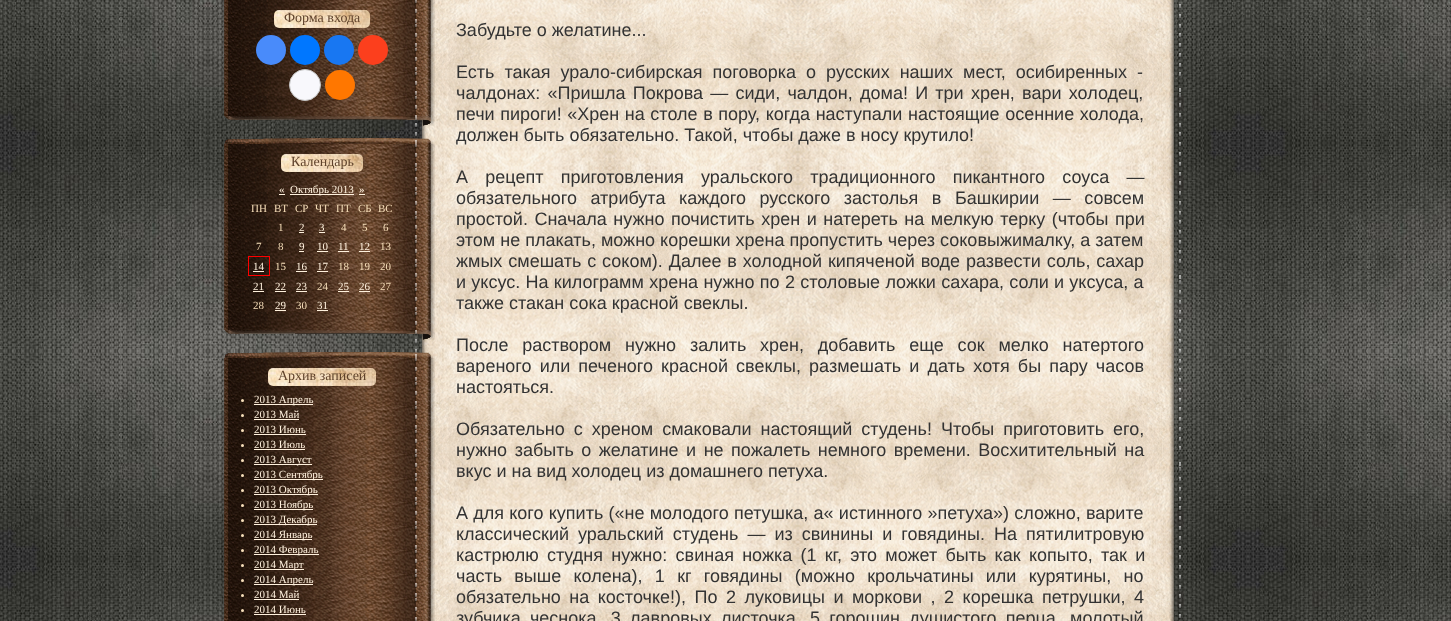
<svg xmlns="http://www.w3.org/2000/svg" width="1451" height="621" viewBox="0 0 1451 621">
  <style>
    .t1 { font: 14px Liberation Serif; fill: #5f422b; }
    .t2 { font: 11px Liberation Serif; fill: #fff1dd; }
    .t3 { font: 11px Liberation Serif; fill: #f7dfba; }
    .t4 { font: 18px Liberation Sans; fill: #333; }
  </style>
  <rect width="100%" height="100%" fill="#fff"/>
  <image x="0" y="0" width="1451" height="621" href="images/1.png"/>
  <image x="414" y="0" width="768" height="621" href="images/2.png"/>
  <image x="224" y="0" width="211" height="116" href="images/3.png"/>
  <image x="274" y="10" width="96" height="18" href="images/4.png"/>
  <text x="284" y="22" class="t1">Форма входа</text>
  <circle cx="271" cy="50" r="15" fill="#498bfa"/>
  <circle cx="305" cy="50" r="15" fill="#07f"/>
  <circle cx="339" cy="50" r="15" fill="#1877f2"/>
  <circle cx="373" cy="50" r="15" fill="#fc3f1d"/>
  <circle cx="305" cy="85" r="15.5" fill="#f8f8fc" stroke="#c4c4c4"/>
  <circle cx="340" cy="85" r="15" fill="#f70"/>
  <image x="225" y="116" width="210" height="10" href="images/5.png"/>
  <image x="224" y="138" width="211" height="6" href="images/6.png"/>
  <image x="224" y="144" width="211" height="186" href="images/7.png"/>
  <image x="281" y="154" width="82" height="18" href="images/8.png"/>
  <text x="291" y="166" class="t1">Календарь</text>
  <text x="279" y="193" class="t2">«</text>
  <rect x="279" y="194" width="6" height="1" fill="#fff1dd"/>
  <rect x="290" y="194" width="64" height="1" fill="#fff1dd"/>
  <text x="290" y="193" class="t2">Октябрь 2013</text>
  <text x="359" y="193" class="t2">»</text>
  <rect x="359" y="194" width="6" height="1" fill="#fff1dd"/>
  <text x="251" y="212" class="t3">ПН</text>
  <text x="274" y="212" class="t3">ВТ</text>
  <text x="295" y="212" class="t3">СР</text>
  <text x="315" y="212" class="t3">ЧТ</text>
  <text x="336" y="212" class="t3">ПТ</text>
  <text x="358" y="212" class="t3">СБ</text>
  <text x="378" y="212" class="t3">ВС</text>
  <text x="278" y="231" class="t3">1</text>
  <text x="299" y="231" class="t2">2</text>
  <rect x="299" y="232" width="5" height="1" fill="#fff1dd"/>
  <text x="319" y="231" class="t2">3</text>
  <rect x="319" y="232" width="6" height="1" fill="#fff1dd"/>
  <text x="341" y="231" class="t3">4</text>
  <text x="362" y="231" class="t3">5</text>
  <text x="383" y="231" class="t3">6</text>
  <text x="256" y="250" class="t3">7</text>
  <text x="278" y="250" class="t3">8</text>
  <text x="299" y="250" class="t2">9</text>
  <rect x="299" y="251" width="5" height="1" fill="#fff1dd"/>
  <text x="317" y="250" class="t2">10</text>
  <rect x="317" y="251" width="11" height="1" fill="#fff1dd"/>
  <text x="338" y="250" class="t2">11</text>
  <rect x="338" y="251" width="11" height="1" fill="#fff1dd"/>
  <text x="359" y="250" class="t2">12</text>
  <rect x="359" y="251" width="11" height="1" fill="#fff1dd"/>
  <text x="380" y="250" class="t3">13</text>
  <rect x="248.5" y="256.5" width="21" height="19" fill="none" stroke="#f00"/>
  <text x="253" y="270" class="t2">14</text>
  <rect x="253" y="271" width="11" height="1" fill="#fff1dd"/>
  <text x="275" y="270" class="t3">15</text>
  <text x="296" y="270" class="t2">16</text>
  <rect x="296" y="271" width="11" height="1" fill="#fff1dd"/>
  <text x="317" y="270" class="t2">17</text>
  <rect x="317" y="271" width="11" height="1" fill="#fff1dd"/>
  <text x="338" y="270" class="t3">18</text>
  <text x="359" y="270" class="t3">19</text>
  <text x="380" y="270" class="t3">20</text>
  <text x="253" y="290" class="t2">21</text>
  <rect x="253" y="291" width="11" height="1" fill="#fff1dd"/>
  <text x="275" y="290" class="t2">22</text>
  <rect x="275" y="291" width="11" height="1" fill="#fff1dd"/>
  <text x="296" y="290" class="t2">23</text>
  <rect x="296" y="291" width="11" height="1" fill="#fff1dd"/>
  <text x="317" y="290" class="t3">24</text>
  <text x="338" y="290" class="t2">25</text>
  <rect x="338" y="291" width="11" height="1" fill="#fff1dd"/>
  <text x="359" y="290" class="t2">26</text>
  <rect x="359" y="291" width="11" height="1" fill="#fff1dd"/>
  <text x="380" y="290" class="t3">27</text>
  <text x="253" y="309" class="t3">28</text>
  <text x="275" y="309" class="t2">29</text>
  <rect x="275" y="310" width="11" height="1" fill="#fff1dd"/>
  <text x="296" y="309" class="t3">30</text>
  <text x="317" y="309" class="t2">31</text>
  <rect x="317" y="310" width="11" height="1" fill="#fff1dd"/>
  <image x="225" y="330" width="210" height="10" href="images/9.png"/>
  <image x="224" y="352" width="211" height="6" href="images/10.png"/>
  <image x="224" y="358" width="211" height="263" href="images/11.png"/>
  <image x="268" y="368" width="108" height="18" href="images/12.png"/>
  <text x="278" y="380" class="t1">Архив записей</text>
  <circle cx="242.5" cy="400.5" r="1.5" fill="#f7dfba"/>
  <rect x="254" y="404" width="59" height="1" fill="#fff1dd"/>
  <text x="254" y="403" class="t2">2013 Апрель</text>
  <circle cx="242.5" cy="415.5" r="1.5" fill="#f7dfba"/>
  <text x="254" y="418" class="t2">2013 Май</text>
  <rect x="254" y="419" width="45" height="1" fill="#fff1dd"/>
  <circle cx="242.5" cy="430.5" r="1.5" fill="#f7dfba"/>
  <text x="254" y="433" class="t2">2013 Июнь</text>
  <rect x="254" y="434" width="52" height="1" fill="#fff1dd"/>
  <circle cx="242.5" cy="445.5" r="1.5" fill="#f7dfba"/>
  <text x="254" y="448" class="t2">2013 Июль</text>
  <rect x="254" y="449" width="51" height="1" fill="#fff1dd"/>
  <circle cx="242.5" cy="460.5" r="1.5" fill="#f7dfba"/>
  <rect x="254" y="464" width="58" height="1" fill="#fff1dd"/>
  <text x="254" y="463" class="t2">2013 Август</text>
  <circle cx="242.5" cy="475.5" r="1.5" fill="#f7dfba"/>
  <rect x="254" y="479" width="69" height="1" fill="#fff1dd"/>
  <text x="254" y="478" class="t2">2013 Сентябрь</text>
  <circle cx="242.5" cy="490.5" r="1.5" fill="#f7dfba"/>
  <rect x="254" y="494" width="64" height="1" fill="#fff1dd"/>
  <text x="254" y="493" class="t2">2013 Октябрь</text>
  <circle cx="242.5" cy="505.5" r="1.5" fill="#f7dfba"/>
  <rect x="254" y="509" width="59" height="1" fill="#fff1dd"/>
  <text x="254" y="508" class="t2">2013 Ноябрь</text>
  <circle cx="242.5" cy="520.5" r="1.5" fill="#f7dfba"/>
  <rect x="254" y="524" width="63" height="1" fill="#fff1dd"/>
  <text x="254" y="523" class="t2">2013 Декабрь</text>
  <circle cx="242.5" cy="535.5" r="1.5" fill="#f7dfba"/>
  <rect x="254" y="539" width="58" height="1" fill="#fff1dd"/>
  <text x="254" y="538" class="t2">2014 Январь</text>
  <circle cx="242.5" cy="550.5" r="1.5" fill="#f7dfba"/>
  <rect x="254" y="554" width="65" height="1" fill="#fff1dd"/>
  <text x="254" y="553" class="t2">2014 Февраль</text>
  <circle cx="242.5" cy="565.5" r="1.5" fill="#f7dfba"/>
  <rect x="254" y="569" width="50" height="1" fill="#fff1dd"/>
  <text x="254" y="568" class="t2">2014 Март</text>
  <circle cx="242.5" cy="580.5" r="1.5" fill="#f7dfba"/>
  <rect x="254" y="584" width="59" height="1" fill="#fff1dd"/>
  <text x="254" y="583" class="t2">2014 Апрель</text>
  <circle cx="242.5" cy="595.5" r="1.5" fill="#f7dfba"/>
  <text x="254" y="598" class="t2">2014 Май</text>
  <rect x="254" y="599" width="45" height="1" fill="#fff1dd"/>
  <circle cx="242.5" cy="610.5" r="1.5" fill="#f7dfba"/>
  <text x="254" y="613" class="t2">2014 Июнь</text>
  <rect x="254" y="614" width="52" height="1" fill="#fff1dd"/>
  <text x="456" y="36" class="t4">Забудьте о желатине...</text>
  <text x="456" y="78" word-spacing="5" class="t4">Есть такая урало-сибирская поговорка о русских наших мест, осибиренных -</text>
  <text x="456" y="99" word-spacing="2.25" class="t4">чалдонах: «Пришла Покрова — сиди, чалдон, дома! И три хрен, вари холодец,</text>
  <text x="456" y="120" word-spacing="0.6" class="t4">печи пироги! «Хрен на столе в пору, когда наступали настоящие осенние холода,</text>
  <text x="456" y="141" class="t4">должен быть обязательно. Такой, чтобы даже в носу крутило!</text>
  <text x="456" y="183" word-spacing="12.25" class="t4">А рецепт приготовления уральского традиционного пикантного соуса —</text>
  <text x="456" y="204" word-spacing="8.5" class="t4">обязательного атрибута каждого русского застолья в Башкирии — совсем</text>
  <text x="456" y="225" word-spacing="1.5" class="t4">простой. Сначала нужно почистить хрен и натереть на мелкую терку (чтобы при</text>
  <text x="456" y="246" class="t4">этом не плакать, можно корешки хрена пропустить через соковыжималку, а затем</text>
  <text x="456" y="267" word-spacing="0.9" class="t4">жмых смешать с соком). Далее в холодной кипяченой воде развести соль, сахар</text>
  <text x="456" y="288" word-spacing="0.3" class="t4">и уксус. На килограмм хрена нужно по 2 столовые ложки сахара, соли и уксуса, а</text>
  <text x="456" y="309" class="t4">также стакан сока красной свеклы.</text>
  <text x="456" y="351" word-spacing="8.75" class="t4">После раствором нужно залить хрен, добавить еще сок мелко натертого</text>
  <text x="456" y="372" word-spacing="3.1" class="t4">вареного или печеного красной свеклы, размешать и дать хотя бы пару часов</text>
  <text x="456" y="393" class="t4">настояться.</text>
  <text x="456" y="435" word-spacing="4" class="t4">Обязательно с хреном смаковали настоящий студень! Чтобы приготовить его,</text>
  <text x="456" y="456" word-spacing="2.5" class="t4">нужно забыть о желатине и не пожалеть немного времени. Восхитительный на</text>
  <text x="456" y="477" class="t4">вкус и на вид холодец из домашнего петуха.</text>
  <text x="456" y="519" word-spacing="0.25" class="t4">А для кого купить («не молодого петушка, а« истинного »петуха») сложно, варите</text>
  <text x="456" y="540" word-spacing="4" class="t4">классический уральский студень — из свинины и говядины. На пятилитровую</text>
  <text x="456" y="561" word-spacing="3.25" class="t4">кастрюлю студня нужно: свиная ножка (1 кг, это может быть как копыто, так и</text>
  <text x="456" y="582" word-spacing="7.25" class="t4">часть выше колена), 1 кг говядины (можно крольчатины или курятины, но</text>
  <text x="456" y="603" word-spacing="3.5" class="t4">обязательно на косточке!), По 2 луковицы и моркови , 2 корешка петрушки, 4</text>
  <text x="456" y="624" word-spacing="4.25" class="t4">зубчика чеснока, 3 лавровых листочка, 5 горошин душистого перца, молотый</text>
</svg>
